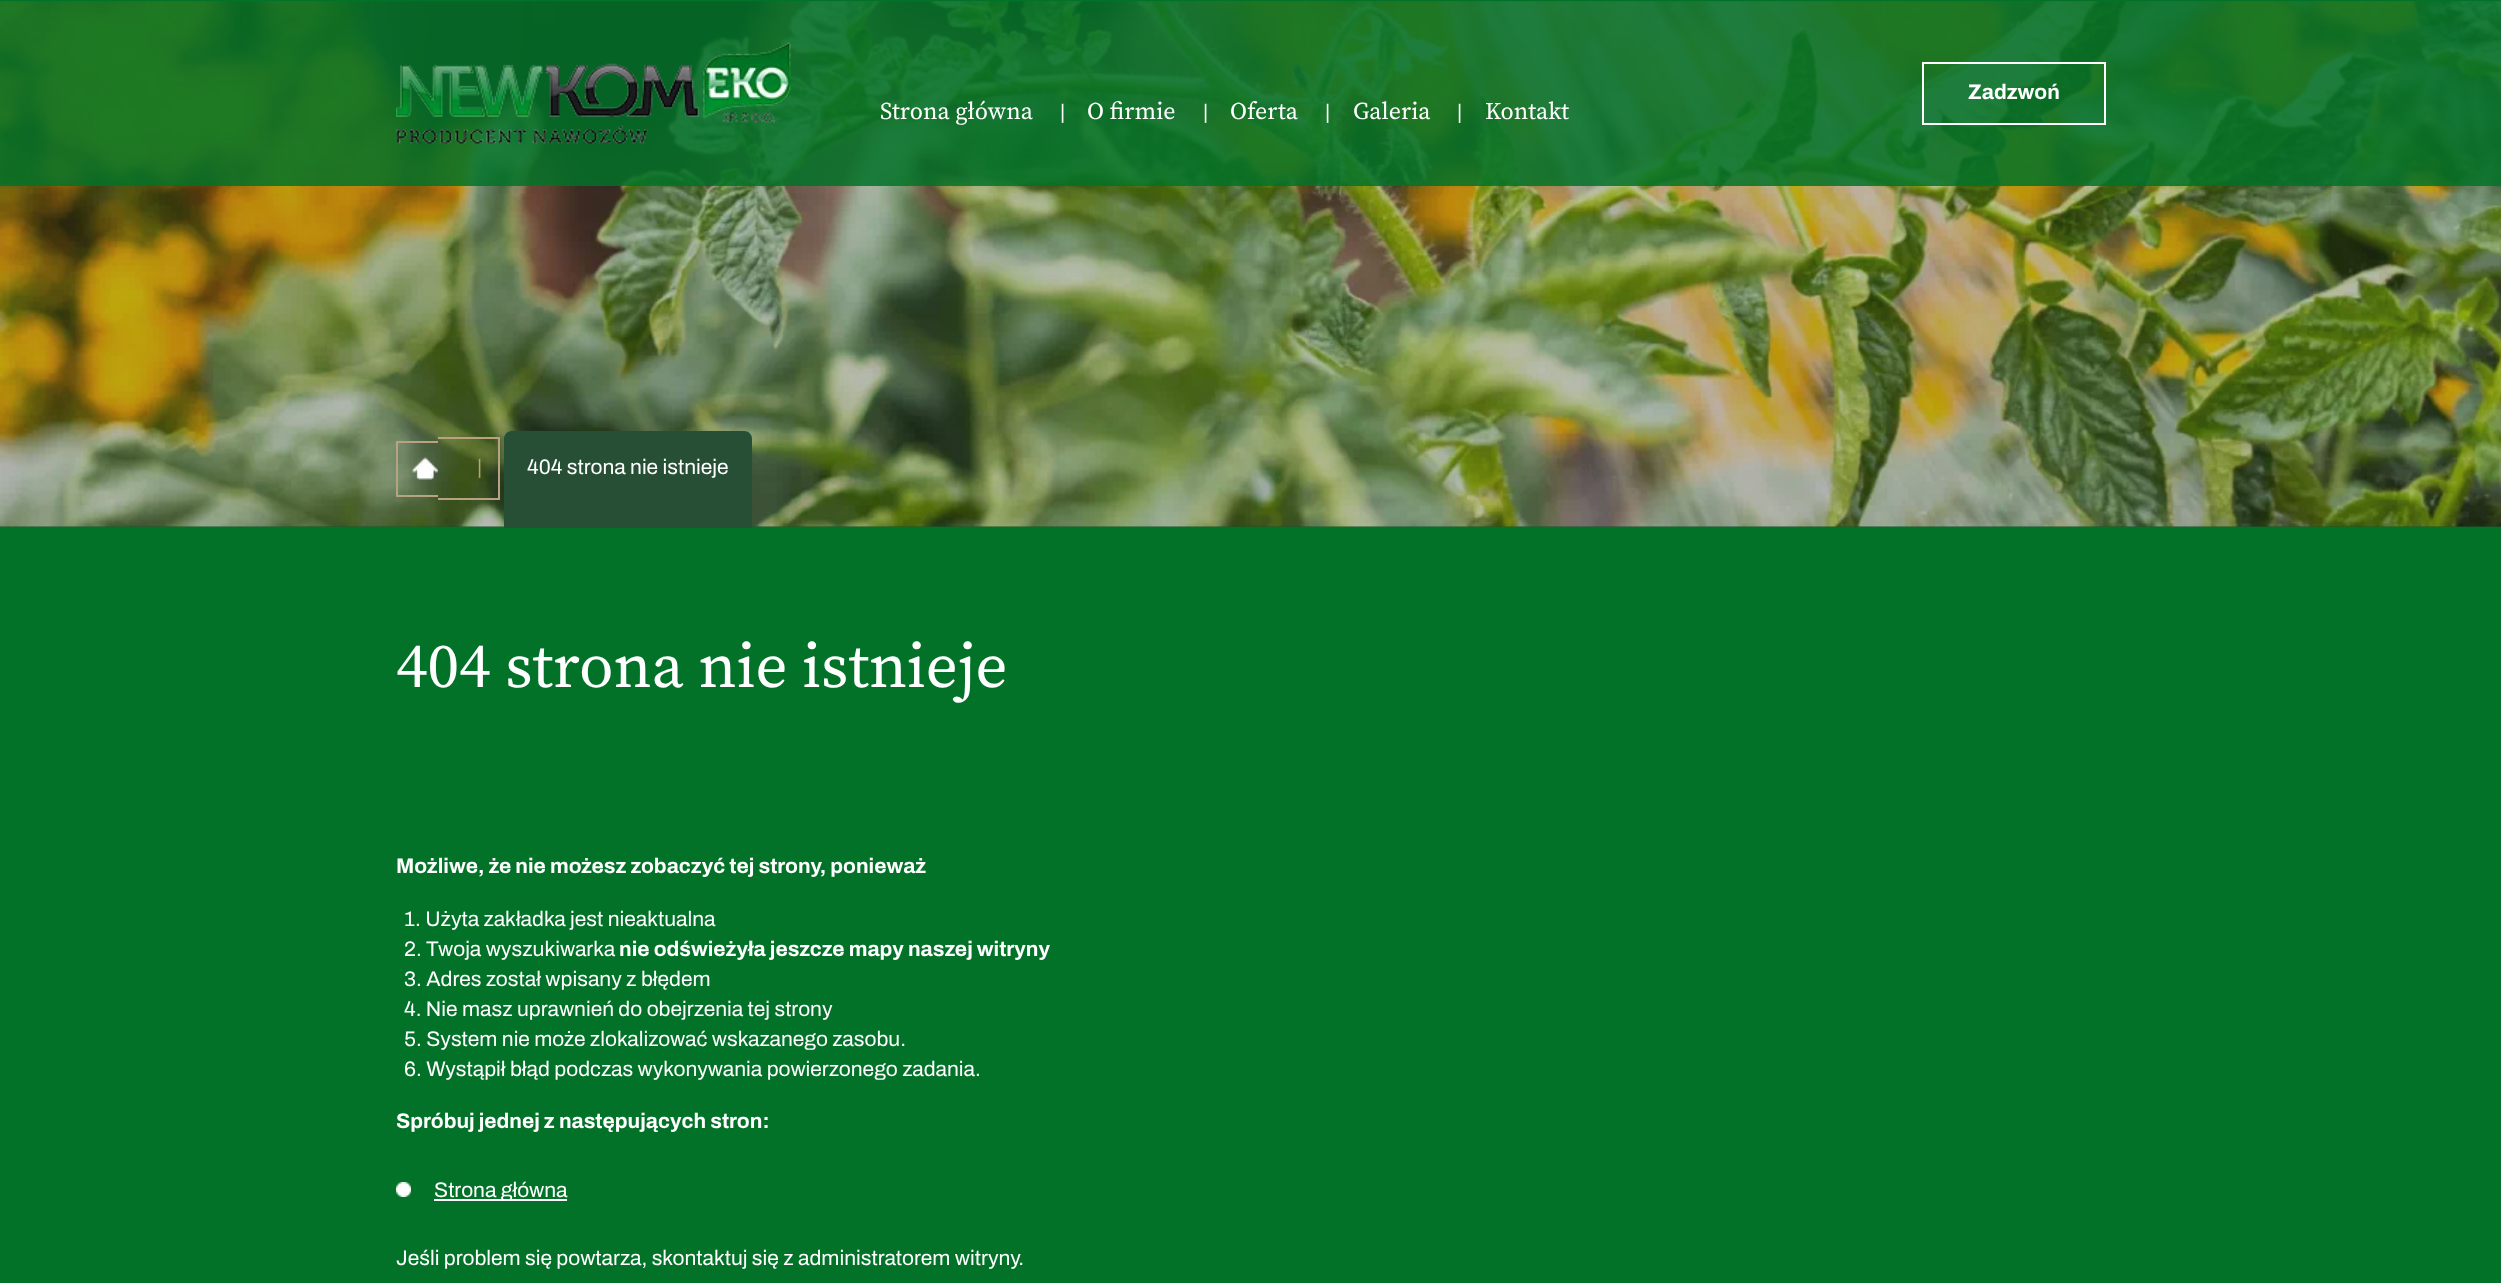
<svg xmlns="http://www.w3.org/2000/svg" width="2501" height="1283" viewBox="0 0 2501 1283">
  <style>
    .t1 { font: bold 21px Archivo; fill: #fff; }
    .t2 { font: 24px Source Serif Pro; fill: #fff; }
    .t3 { font: 21px Archivo; fill: #fff; }
    .t4 { font: 21px Archivo; fill: #b7a382; }
    .t5 { font: 63px Source Serif Pro; fill: #fff; }
  </style>
  <rect width="100%" height="100%" fill="#027228"/>
  <rect x="0" y="526" width="2501" height="1" fill="#0d5b27"/>
  <image x="0" y="1" width="2501" height="526" href="images/2.png"/>
  <rect x="0" y="1" width="2501" height="185" fill="#027228d9"/>
  <image x="396" y="42" width="395" height="102" href="images/1.png"/>
  <rect x="1923" y="63" width="182" height="61" fill="none" stroke="#fff" stroke-width="2"/>
  <text x="1968" y="99" class="t1">Zadzwoń</text>
  <text x="880" y="119" class="t2">Strona główna</text>
  <text x="1060" y="119" class="t3">|</text>
  <text x="1087" y="119" class="t2">O firmie</text>
  <text x="1203" y="119" class="t3">|</text>
  <text x="1230" y="119" class="t2">Oferta</text>
  <text x="1325" y="119" class="t3">|</text>
  <text x="1353" y="119" class="t2">Galeria</text>
  <text x="1457" y="119" class="t3">|</text>
  <text x="1485" y="119" class="t2">Kontakt</text>
  <rect x="438" y="437" width="62" height="2" fill="#b7a382"/>
  <rect x="396" y="441" width="42" height="2" fill="#b7a382"/>
  <rect x="498" y="437" width="2" height="63" fill="#b7a382"/>
  <rect x="396" y="495" width="42" height="2" fill="#b7a382"/>
  <rect x="396" y="441" width="2" height="56" fill="#b7a382"/>
  <image x="412" y="457" width="26" height="23" href="images/3.png"/>
  <rect x="438" y="498" width="62" height="2" fill="#b7a382"/>
  <text x="477" y="474" class="t4">|</text>
  <path d="M512 431H744C748.5 431 752 434.5 752 439V528H504V439C504 434.5 507.5 431 512 431Z" fill="#274f36"/>
  <text x="527" y="474" class="t3">404 strona nie istnieje</text>
  <text x="396" y="687" class="t5">404 strona nie istnieje</text>
  <text x="396" y="873" class="t1">Możliwe, że nie możesz zobaczyć tej strony, ponieważ</text>
  <text x="404" y="926" class="t3">1. Użyta zakładka jest nieaktualna</text>
  <text x="404" y="956" class="t3">2. Twoja wyszukiwarka</text>
  <text x="619" y="956" class="t1">nie odświeżyła jeszcze mapy naszej witryny</text>
  <text x="404" y="986" class="t3">3. Adres został wpisany z błędem</text>
  <text x="404" y="1016" class="t3">4. Nie masz uprawnień do obejrzenia tej strony</text>
  <text x="404" y="1046" class="t3">5. System nie może zlokalizować wskazanego zasobu.</text>
  <text x="404" y="1076" class="t3">6. Wystąpił błąd podczas wykonywania powierzonego zadania.</text>
  <text x="396" y="1128" class="t1">Spróbuj jednej z następujących stron:</text>
  <image x="396" y="1182" width="15" height="15" href="images/4.png"/>
  <rect x="434" y="1199" width="133" height="2" fill="#fff"/>
  <text x="434" y="1197" class="t3">Strona główna</text>
  <text x="396" y="1265" class="t3">Jeśli problem się powtarza, skontaktuj się z administratorem witryny.</text>
</svg>
